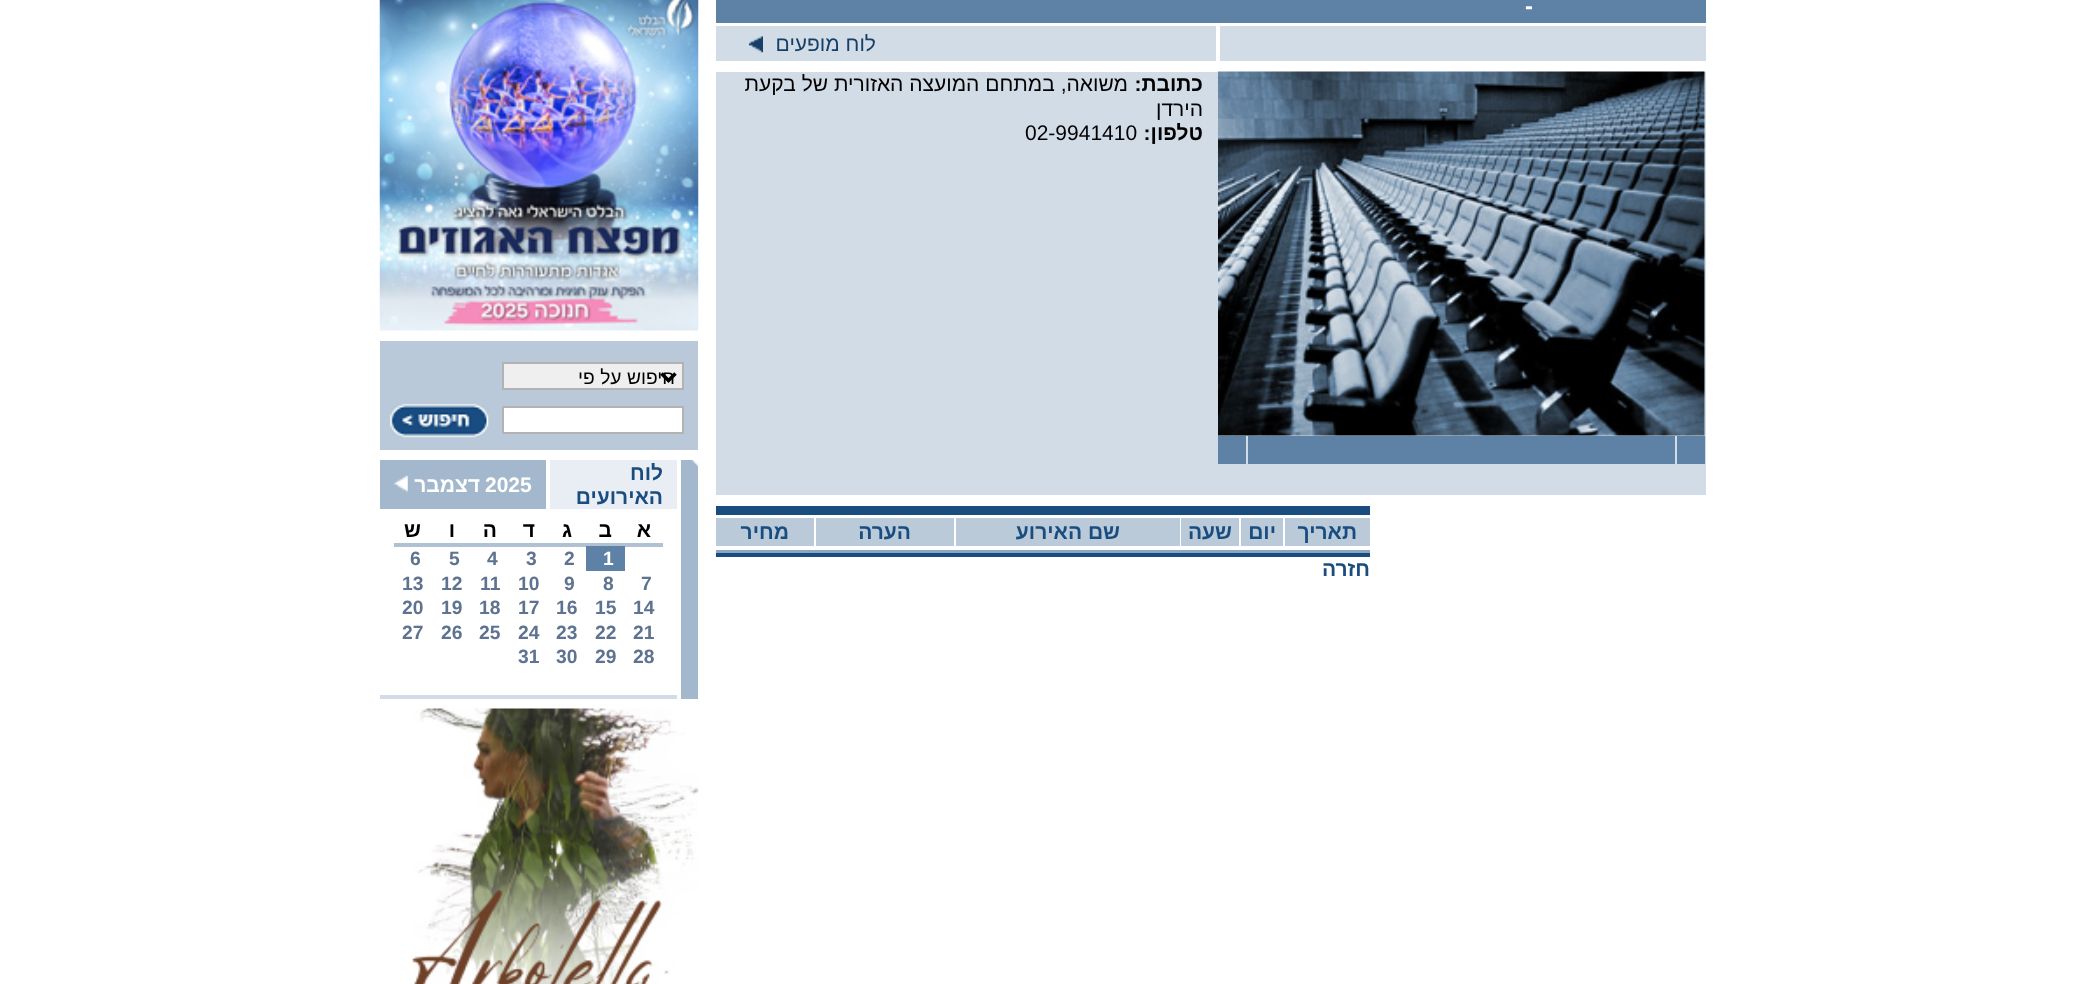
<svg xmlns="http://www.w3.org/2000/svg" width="2085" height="984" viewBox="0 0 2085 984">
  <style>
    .t1 { font: bold 24px Liberation Sans; fill: #fff; }
    .t2 { font: 21px Liberation Sans; direction: rtl; fill: #163f68; }
    .t3 { font: bold 21px Liberation Sans; direction: rtl; fill: #000; }
    .t4 { font: 21px Liberation Sans; direction: rtl; fill: #000; }
    .t5 { font: 21px Liberation Sans; fill: #000; }
    .t6 { font: bold 21px Liberation Sans; direction: rtl; fill: #194c7f; }
    .t7 { font: 19.25px Liberation Sans; direction: rtl; fill: #000; }
    .t8 { font: bold 21px Liberation Sans; fill: #fff; }
    .t9 { font: bold 21px Liberation Sans; direction: rtl; fill: #fff; }
    .t10 { font: bold 19.25px Liberation Sans; fill: #fff; }
    .t11 { font: bold 19.25px Liberation Sans; fill: #5e738f; }
  </style>
  <rect width="100%" height="100%" fill="#fff"/>
  <rect x="716" y="0" width="990" height="23" fill="#5e82a6"/>
  <text x="1525" y="14" class="t1">-</text>
  <rect x="1220" y="26" width="486" height="35" fill="#d1dce6"/>
  <rect x="716" y="26" width="500" height="35" fill="#d1dce6"/>
  <text x="876" y="51" class="t2">לוח מופעים</text>
  <image x="749" y="36" width="14" height="17" href="images/1.png"/>
  <rect x="716" y="72" width="990" height="423" fill="#d1dce6"/>
  <image x="1218" y="71" width="487" height="365" href="images/2.png"/>
  <rect x="1677" y="436" width="28" height="28" fill="#5e82a6"/>
  <rect x="1248" y="436" width="427" height="28" fill="#5e82a6"/>
  <rect x="1218" y="436" width="28" height="28" fill="#5e82a6"/>
  <text x="1203" y="91" class="t3">כתובת:</text>
  <text x="1128" y="91" class="t4">משואה, במתחם המועצה האזורית של בקעת</text>
  <text x="1203" y="116" class="t4">הירדן</text>
  <text x="1203" y="140" class="t3">טלפון:</text>
  <text x="1025" y="140" class="t5">02-9941410</text>
  <rect x="716" y="506" width="654" height="9" fill="#194c7f"/>
  <rect x="1285" y="518" width="85" height="28" fill="#bacad9"/>
  <text x="1357" y="539" class="t6">תאריך</text>
  <rect x="1241" y="518" width="42" height="28" fill="#bacad9"/>
  <text x="1276" y="539" class="t6">יום</text>
  <rect x="1181" y="518" width="58" height="28" fill="#bacad9"/>
  <text x="1232" y="539" class="t6">שעה</text>
  <rect x="956" y="518" width="224" height="28" fill="#bacad9"/>
  <text x="1120" y="539" class="t6">שם האירוע</text>
  <rect x="816" y="518" width="138" height="28" fill="#bacad9"/>
  <text x="911" y="539" class="t6">הערה</text>
  <rect x="716" y="518" width="98" height="28" fill="#bacad9"/>
  <text x="789" y="539" class="t6">מחיר</text>
  <rect x="716" y="550" width="654" height="3" fill="#8ca6bf"/>
  <rect x="716" y="553" width="654" height="4" fill="#194c7f"/>
  <text x="1370" y="576" class="t6">חזרה</text>
  <image x="379" y="0" width="320" height="331" href="images/3.png"/>
  <rect x="380" y="341" width="318" height="109" fill="#bac9d9"/>
  <rect x="503" y="363" width="180" height="26" fill="#efefef" stroke="#b3b3b3" stroke-width="2"/>
  <path d="M661.5 373.5L668.5 380.5L675.5 373.5" fill="none" stroke="#000" stroke-width="3.5"/>
  <text x="675" y="384" class="t7">חיפוש על פי</text>
  <rect x="503" y="407" width="180" height="26" fill="#fff" stroke="#b3b3b3" stroke-width="2"/>
  <image x="390" y="404" width="99" height="34" href="images/4.png"/>
  <rect x="681" y="460" width="17" height="239" fill="#a3b8cc"/>
  <image x="692" y="460" width="6" height="6" href="images/5.png"/>
  <rect x="550" y="460" width="127" height="49" fill="#e8eef3"/>
  <text x="663" y="480" class="t6">לוח</text>
  <text x="663" y="504" class="t6">האירועים</text>
  <rect x="380" y="460" width="166" height="49" fill="#a3b8cc"/>
  <text x="485" y="492" class="t8">2025</text>
  <text x="480" y="492" class="t9">דצמבר</text>
  <image x="393" y="475" width="15" height="17" href="images/6.png"/>
  <text x="651" y="537" class="t3">א</text>
  <text x="612" y="537" class="t3">ב</text>
  <text x="572" y="537" class="t3">ג</text>
  <text x="535" y="537" class="t3">ד</text>
  <text x="497" y="537" class="t3">ה</text>
  <text x="455" y="537" class="t3">ו</text>
  <text x="421" y="537" class="t3">ש</text>
  <rect x="394" y="543" width="269" height="4" fill="#afc1d3"/>
  <rect x="586" y="546" width="39" height="25" fill="#5e82a6"/>
  <text x="603" y="565" class="t10">1</text>
  <text x="564" y="565" class="t11">2</text>
  <text x="526" y="565" class="t11">3</text>
  <text x="487" y="565" class="t11">4</text>
  <text x="449" y="565" class="t11">5</text>
  <text x="410" y="565" class="t11">6</text>
  <text x="641" y="590" class="t11">7</text>
  <text x="603" y="590" class="t11">8</text>
  <text x="564" y="590" class="t11">9</text>
  <text x="518" y="590" class="t11">10</text>
  <text x="480" y="590" class="t11">11</text>
  <text x="441" y="590" class="t11">12</text>
  <text x="402" y="590" class="t11">13</text>
  <text x="633" y="614" class="t11">14</text>
  <text x="595" y="614" class="t11">15</text>
  <text x="556" y="614" class="t11">16</text>
  <text x="518" y="614" class="t11">17</text>
  <text x="479" y="614" class="t11">18</text>
  <text x="441" y="614" class="t11">19</text>
  <text x="402" y="614" class="t11">20</text>
  <text x="633" y="639" class="t11">21</text>
  <text x="595" y="639" class="t11">22</text>
  <text x="556" y="639" class="t11">23</text>
  <text x="518" y="639" class="t11">24</text>
  <text x="479" y="639" class="t11">25</text>
  <text x="441" y="639" class="t11">26</text>
  <text x="402" y="639" class="t11">27</text>
  <text x="633" y="663" class="t11">28</text>
  <text x="595" y="663" class="t11">29</text>
  <text x="556" y="663" class="t11">30</text>
  <text x="518" y="663" class="t11">31</text>
  <rect x="380" y="695" width="297" height="4" fill="#d1dce6"/>
  <image x="411" y="708" width="288" height="276" href="images/7.png"/>
</svg>
